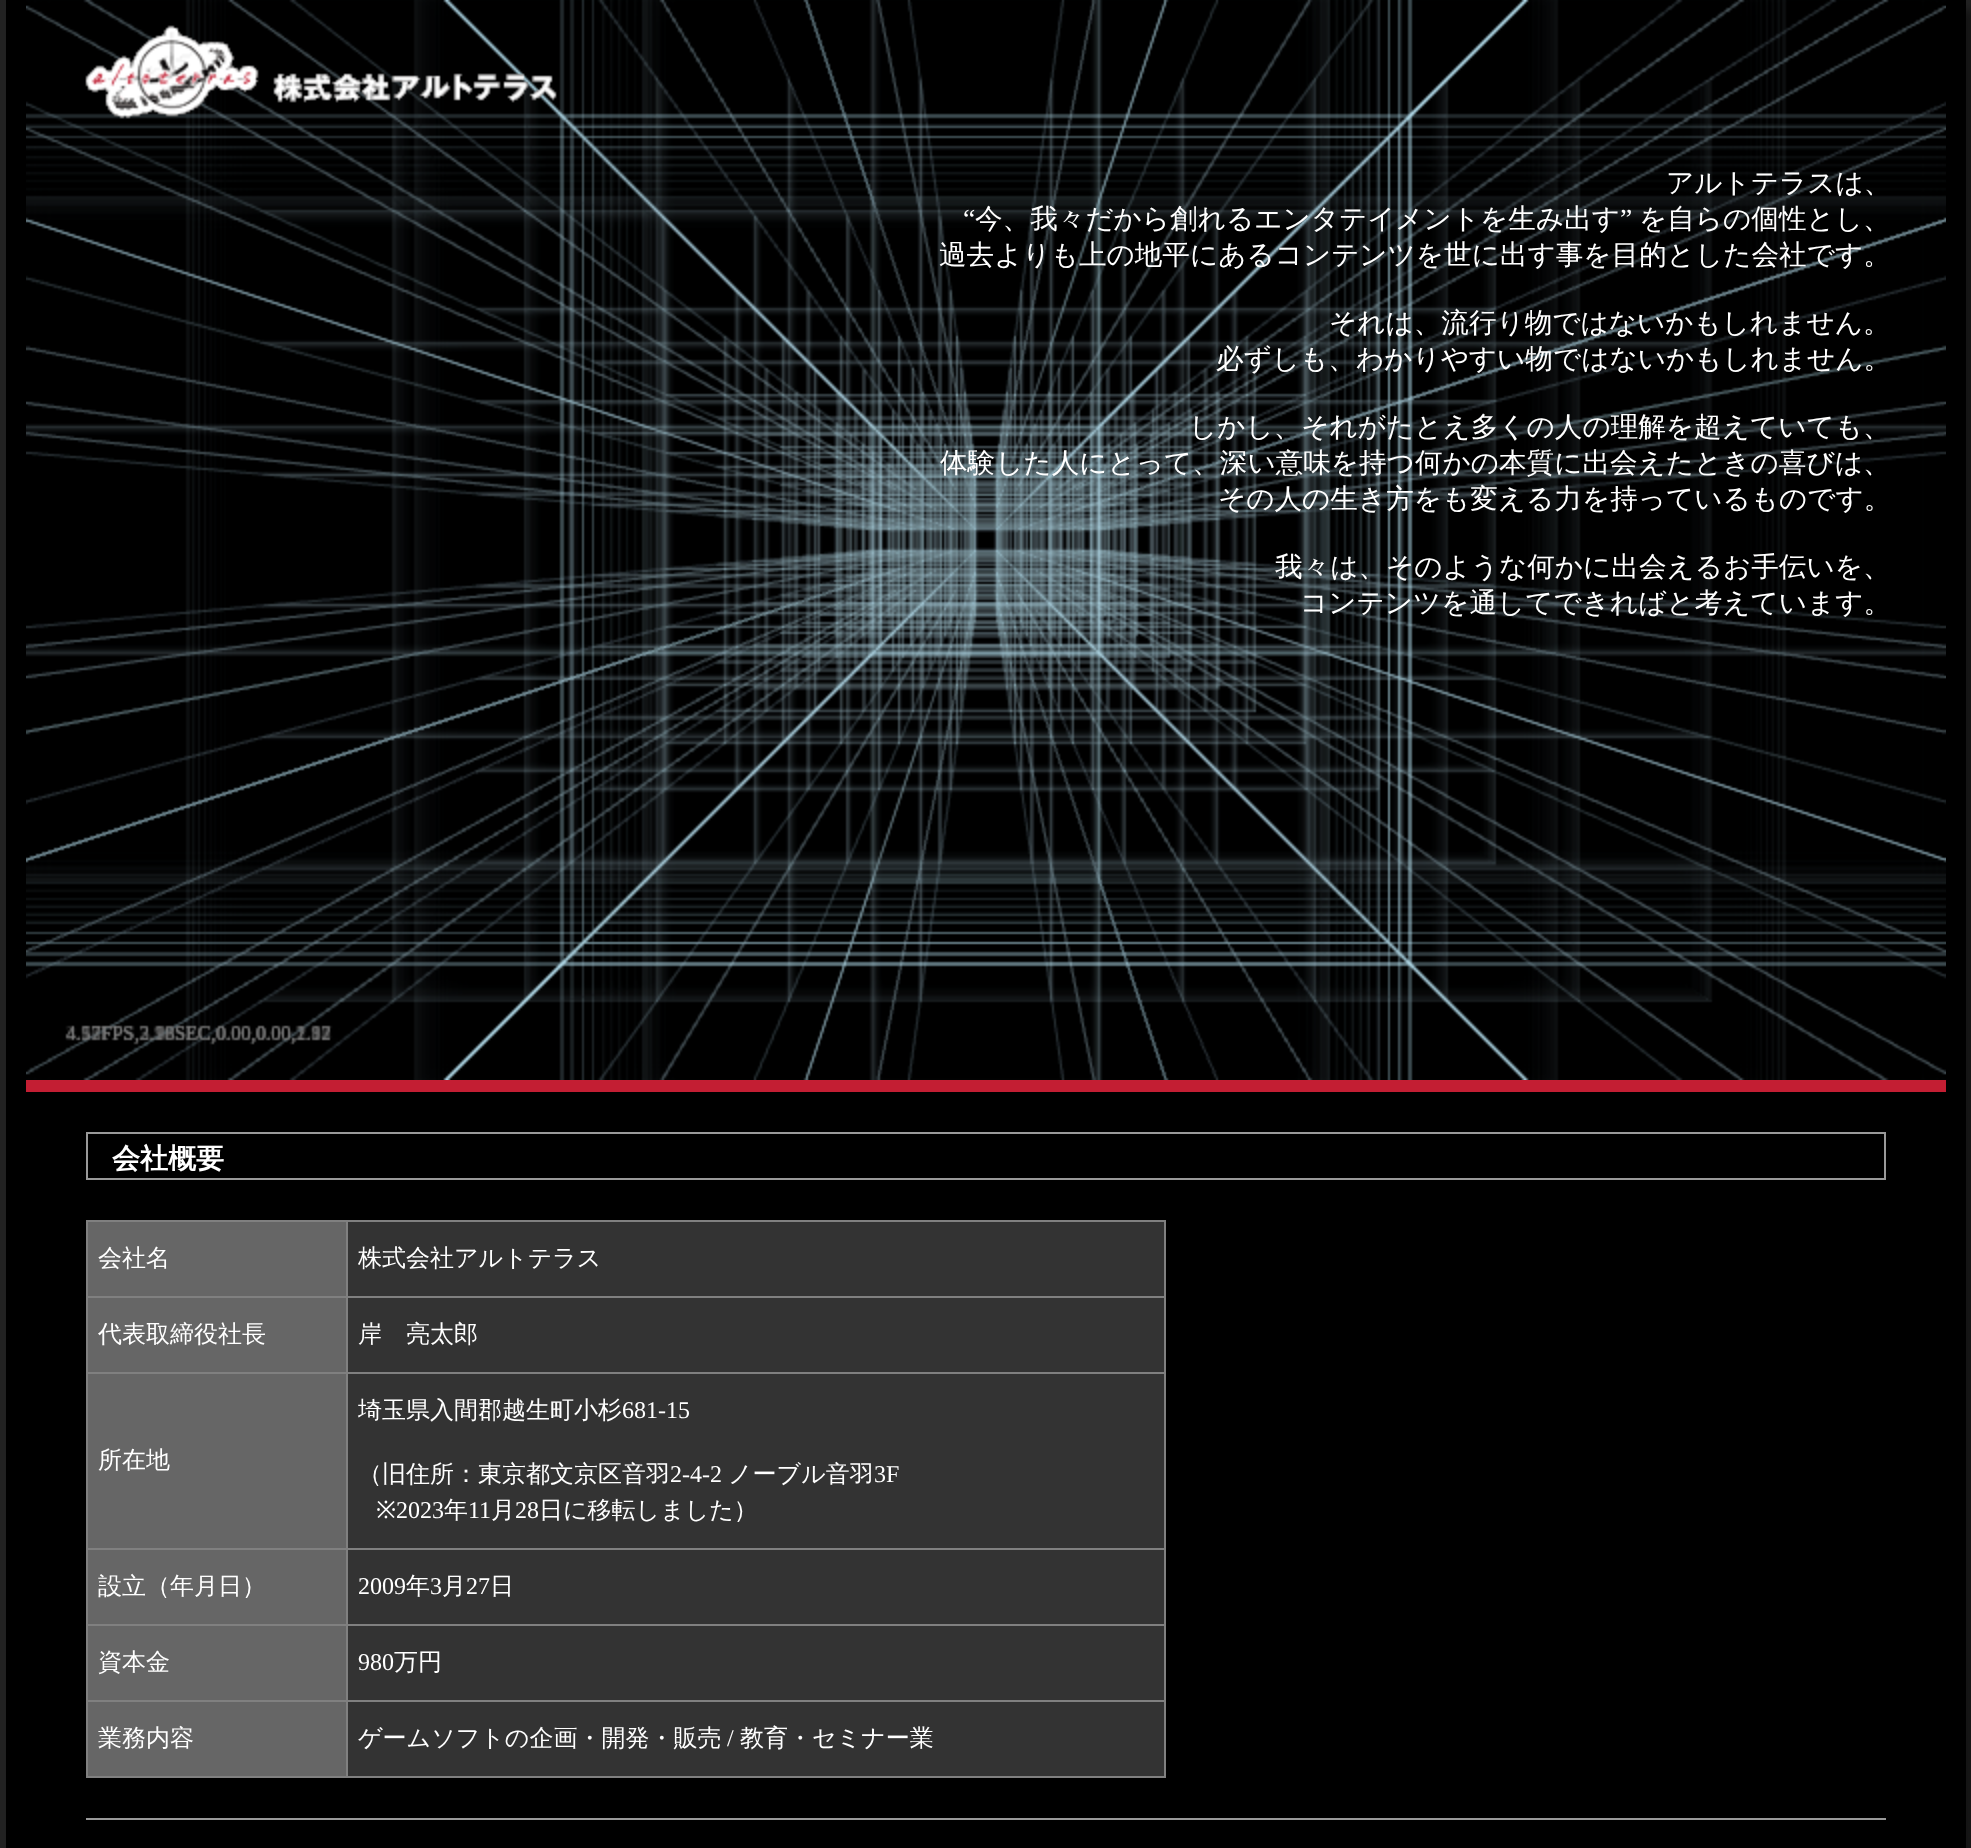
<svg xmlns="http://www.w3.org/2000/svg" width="1971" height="1848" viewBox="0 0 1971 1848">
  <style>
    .t1 { font: 500 27.6px WenQuanYi Zen Hei; fill: #fff; }
    .t2 { font: 27.6px Liberation Serif; fill: #fff; }
    .t3 { font: bold 28px WenQuanYi Zen Hei; fill: #fff; }
    .t4 { font: 500 24px WenQuanYi Zen Hei; fill: #fff; }
    .t5 { font: 24px Liberation Serif; fill: #fff; }
    .t6 { font: 24px Noto Sans; fill: #fff; }
  </style>
  <rect width="100%" height="100%" fill="#222"/>
  <rect x="16" y="10" width="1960" height="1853" fill="#00000066" filter="blur(5px)"/>
  <rect x="6" y="0" width="1960" height="1848" fill="#000"/>
  <rect x="26" y="1080" width="1920" height="12" fill="#c31e33"/>
  <image x="26" y="0" width="1920" height="1080" href="images/1.png"/>
  <image x="85" y="25" width="472" height="94" href="images/2.png"/>
  <text x="1666" y="192" class="t1">アルトテラスは、</text>
  <text x="963" y="228" class="t2">“</text>
  <text x="975" y="228" class="t1">今、我々だから創れるエンタテイメントを生み出す</text>
  <text x="1620" y="228" class="t2">”</text>
  <text x="1639" y="228" class="t1">を自らの個性とし、</text>
  <text x="939" y="264" class="t1">過去よりも上の地平にあるコンテンツを世に出す事を目的とした会社です。</text>
  <text x="1329" y="332" class="t1">それは、流行り物ではないかもしれません。</text>
  <text x="1216" y="368" class="t1">必ずしも、わかりやすい物ではないかもしれません。</text>
  <text x="1189" y="436" class="t1">しかし、それがたとえ多くの人の理解を超えていても、</text>
  <text x="940" y="472" class="t1">体験した人にとって、深い意味を持つ何かの本質に出会えたときの喜びは、</text>
  <text x="1218" y="508" class="t1">その人の生き方をも変える力を持っているものです。</text>
  <text x="1275" y="576" class="t1">我々は、そのような何かに出会えるお手伝いを、</text>
  <text x="1300" y="612" class="t1">コンテンツを通してできればと考えています。</text>
  <rect x="87" y="1133" width="1798" height="46" fill="none" stroke="#999" stroke-width="2"/>
  <text x="112" y="1168" class="t3">会社概要</text>
  <rect x="88" y="1222" width="258" height="74" fill="#666"/>
  <rect x="346" y="1220" width="820" height="2" fill="#808080"/>
  <rect x="346" y="1296" width="820" height="2" fill="#808080"/>
  <rect x="346" y="1372" width="820" height="2" fill="#808080"/>
  <rect x="346" y="1548" width="820" height="2" fill="#808080"/>
  <rect x="346" y="1624" width="820" height="2" fill="#808080"/>
  <rect x="346" y="1700" width="820" height="2" fill="#808080"/>
  <rect x="1164" y="1700" width="2" height="78" fill="#808080"/>
  <rect x="346" y="1776" width="820" height="2" fill="#808080"/>
  <rect x="346" y="1700" width="2" height="78" fill="#808080"/>
  <rect x="86" y="1700" width="262" height="2" fill="#808080"/>
  <rect x="346" y="1624" width="2" height="78" fill="#808080"/>
  <rect x="86" y="1624" width="262" height="2" fill="#808080"/>
  <rect x="346" y="1548" width="2" height="78" fill="#808080"/>
  <rect x="86" y="1548" width="262" height="2" fill="#808080"/>
  <rect x="346" y="1372" width="2" height="178" fill="#808080"/>
  <rect x="86" y="1372" width="262" height="2" fill="#808080"/>
  <rect x="346" y="1296" width="2" height="78" fill="#808080"/>
  <rect x="86" y="1296" width="262" height="2" fill="#808080"/>
  <rect x="346" y="1220" width="2" height="78" fill="#808080"/>
  <rect x="86" y="1220" width="262" height="2" fill="#808080"/>
  <rect x="86" y="1776" width="262" height="2" fill="#808080"/>
  <rect x="86" y="1700" width="2" height="78" fill="#808080"/>
  <rect x="86" y="1624" width="2" height="78" fill="#808080"/>
  <rect x="86" y="1548" width="2" height="78" fill="#808080"/>
  <rect x="86" y="1372" width="2" height="178" fill="#808080"/>
  <rect x="86" y="1296" width="2" height="78" fill="#808080"/>
  <rect x="86" y="1220" width="2" height="78" fill="#808080"/>
  <text x="98" y="1266" class="t4">会社名</text>
  <rect x="348" y="1222" width="816" height="74" fill="#333"/>
  <rect x="1164" y="1624" width="2" height="78" fill="#808080"/>
  <rect x="1164" y="1548" width="2" height="78" fill="#808080"/>
  <rect x="1164" y="1372" width="2" height="178" fill="#808080"/>
  <rect x="1164" y="1296" width="2" height="78" fill="#808080"/>
  <rect x="1164" y="1220" width="2" height="78" fill="#808080"/>
  <text x="358" y="1266" class="t4">株式会社アルトテラス</text>
  <rect x="88" y="1298" width="258" height="74" fill="#666"/>
  <text x="98" y="1342" class="t4">代表取締役社長</text>
  <rect x="348" y="1298" width="816" height="74" fill="#333"/>
  <text x="358" y="1342" class="t4">岸　亮太郎</text>
  <rect x="88" y="1374" width="258" height="174" fill="#666"/>
  <text x="98" y="1468" class="t4">所在地</text>
  <rect x="348" y="1374" width="816" height="174" fill="#333"/>
  <text x="358" y="1418" class="t4">埼玉県入間郡越生町小杉</text>
  <text x="622" y="1418" class="t5">681-15</text>
  <text x="358" y="1482" class="t4">（旧住所：東京都文京区音羽</text>
  <text x="670" y="1482" class="t5">2-4-2</text>
  <text x="728" y="1482" class="t4">ノーブル音羽</text>
  <text x="874" y="1482" class="t5">3F</text>
  <text x="376" y="1518" class="t6">※</text>
  <text x="396" y="1518" class="t5">2023</text>
  <text x="444" y="1518" class="t4">年</text>
  <text x="468" y="1518" class="t5">11</text>
  <text x="491" y="1518" class="t4">月</text>
  <text x="515" y="1518" class="t5">28</text>
  <text x="539" y="1518" class="t4">日に移転しました）</text>
  <rect x="88" y="1550" width="258" height="74" fill="#666"/>
  <text x="98" y="1594" class="t4">設立（年月日）</text>
  <rect x="348" y="1550" width="816" height="74" fill="#333"/>
  <text x="358" y="1594" class="t5">2009</text>
  <text x="406" y="1594" class="t4">年</text>
  <text x="430" y="1594" class="t5">3</text>
  <text x="442" y="1594" class="t4">月</text>
  <text x="466" y="1594" class="t5">27</text>
  <text x="490" y="1594" class="t4">日</text>
  <rect x="88" y="1626" width="258" height="74" fill="#666"/>
  <text x="98" y="1670" class="t4">資本金</text>
  <rect x="348" y="1626" width="816" height="74" fill="#333"/>
  <text x="358" y="1670" class="t5">980</text>
  <text x="394" y="1670" class="t4">万円</text>
  <rect x="88" y="1702" width="258" height="74" fill="#666"/>
  <text x="98" y="1746" class="t4">業務内容</text>
  <rect x="348" y="1702" width="816" height="74" fill="#333"/>
  <text x="358" y="1746" class="t4">ゲームソフトの企画・開発・販売</text>
  <text x="727" y="1746" class="t5">/</text>
  <text x="740" y="1746" class="t4">教育・セミナー業</text>
  <rect x="86" y="1818" width="1800" height="2" fill="#999"/>
</svg>
